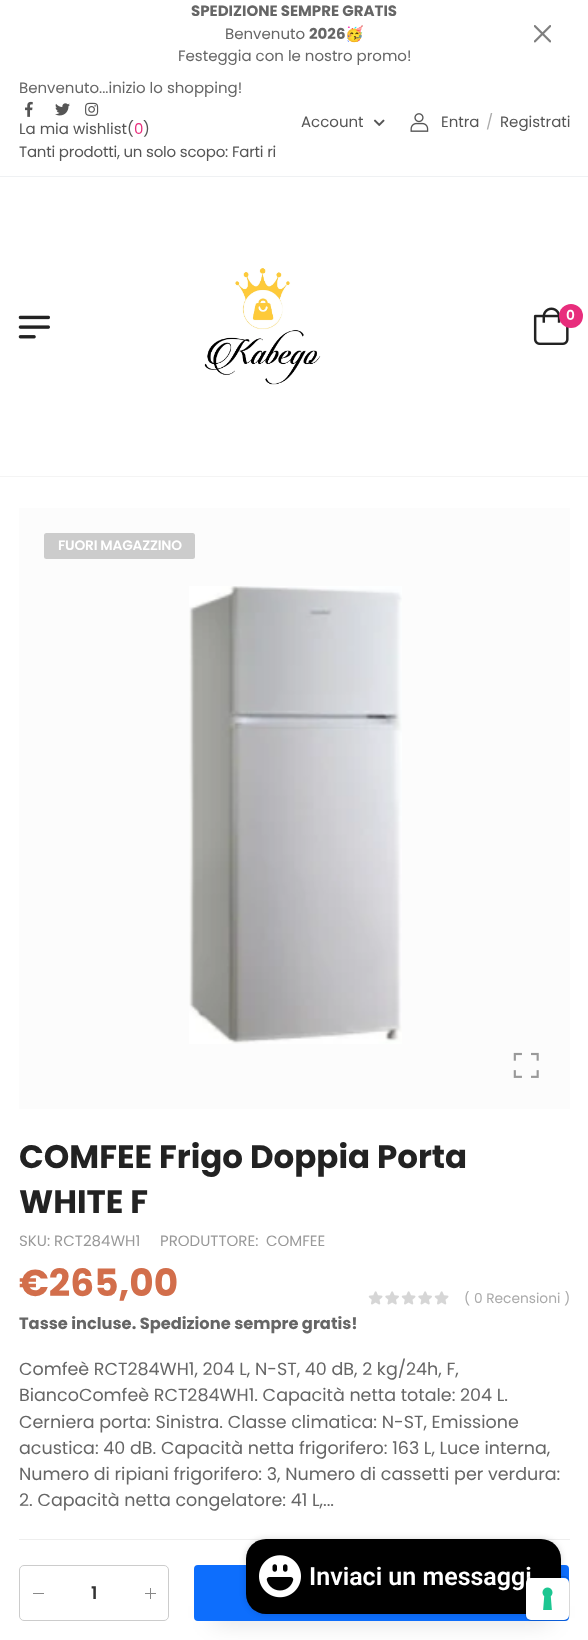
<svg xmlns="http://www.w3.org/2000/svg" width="588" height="1640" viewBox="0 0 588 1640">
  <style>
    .t1 { font: bold 15px Poppins; fill: #666; }
    .t2 { font: 15px Poppins; fill: #666; }
    .t3 { font: 15px Noto Color Emoji; fill: #666; }
    .t4 { font: 15px Poppins; fill: #555; }
    .t5 { font: 15px Poppins; fill: #e82d7c; }
    .t6 { font: 15px Poppins; letter-spacing: -0.2px; fill: #555; }
    .t7 { font: 15px Poppins; fill: #aaa; }
    .t8 { font: 600 13.75px Poppins; fill: #fff; }
    .t9 { font: 600 13.75px Poppins; letter-spacing: -0.2px; fill: #fff; }
    .t10 { font: bold 32.5px Poppins; fill: #222; }
    .t11 { font: 15px Poppins; fill: #999; }
    .t12 { font: bold 37.5px Poppins; fill: #d26e4b; }
    .t13 { font: bold 16.25px Poppins; fill: #666; }
    .t14 { font: 13.75px Poppins; fill: #aaa; }
    .t15 { font: 17.5px Poppins; fill: #666; }
    .t16 { font: 600 17.5px Poppins; fill: #333; }
    .t17 { font: 600 25px Roboto; fill: #fff; }
  </style>
  <defs>
    <clipPath id="clip1"><rect x="464" y="1291" width="106" height="15"/></clipPath>
  </defs>
  <rect width="100%" height="100%" fill="#fff"/>
  <text x="191" y="16" class="t1">SPEDIZIONE SEMPRE GRATIS</text>
  <text x="225" y="39" class="t2">Benvenuto</text>
  <text x="309" y="39" class="t1">2026</text>
  <text x="345" y="39" class="t3">🥳</text>
  <text x="178" y="61" class="t2">Festeggia con le nostro promo!</text>
  <image x="534" y="25" width="17" height="18" href="images/1.png"/>
  <text x="19" y="93" class="t2">Benvenuto...inizio lo shopping!</text>
  <image x="25" y="101" width="8" height="16" href="images/2.png"/>
  <image x="55" y="103" width="15" height="13" href="images/3.png"/>
  <image x="85" y="102" width="14" height="14" href="images/4.png"/>
  <text x="19" y="134" class="t4">La mia wishlist(</text>
  <text x="134" y="134" class="t5">0</text>
  <text x="143" y="134" class="t4">)</text>
  <text x="19" y="157" class="t6">Tanti prodotti, un solo scopo: Farti ri</text>
  <text x="301" y="127" class="t4">Account</text>
  <image x="373" y="119" width="12" height="7" href="images/5.png"/>
  <image x="410" y="113" width="19" height="19" href="images/6.png"/>
  <text x="441" y="127" class="t4">Entra</text>
  <text x="486" y="127" class="t7">/</text>
  <text x="500" y="127" class="t4">Registrati</text>
  <rect x="0" y="176" width="588" height="1" fill="#eff1f3"/>
  <image x="18" y="315" width="32" height="24" href="images/7.png"/>
  <image x="204" y="268" width="117" height="117" href="images/8.png"/>
  <image x="533" y="307" width="36" height="38" href="images/9.png"/>
  <circle cx="571" cy="316" r="12" fill="#e82d7c"/>
  <text x="566" y="320" class="t8">0</text>
  <rect x="0" y="476" width="588" height="1" fill="#f4f4f4"/>
  <rect x="19" y="508" width="551" height="601" fill="#fcfcfc"/>
  <image x="189" y="586" width="213" height="458" href="images/10.png"/>
  <rect x="44" y="533" width="151" height="26" rx="2.5" fill="#ccc"/>
  <text x="58" y="550" class="t9">FUORI MAGAZZINO</text>
  <image x="513" y="1052" width="26" height="26" href="images/11.png"/>
  <text x="19" y="1168" class="t10">COMFEE Frigo Doppia Porta</text>
  <text x="19" y="1213" class="t10">WHITE F</text>
  <text x="19" y="1246" class="t11">SKU: RCT284WH1</text>
  <text x="160" y="1246" class="t11">PRODUTTORE:</text>
  <text x="266" y="1246" class="t11">COMFEE</text>
  <text x="19" y="1296" class="t12">€265,00</text>
  <text x="19" y="1329" class="t13">Tasse incluse. Spedizione sempre gratis!</text>
  <image x="368" y="1291" width="81" height="14" href="images/12.png"/>
  <g clip-path="url(#clip1)">
    <text x="464" y="1303" class="t14">( 0 Recensioni )</text>
  </g>
  <text x="19" y="1375" class="t15">Comfeè RCT284WH1, 204 L, N-ST, 40 dB, 2 kg/24h, F,</text>
  <text x="19" y="1401" class="t15">BiancoComfeè RCT284WH1. Capacità netta totale: 204 L.</text>
  <text x="19" y="1428" class="t15">Cerniera porta: Sinistra. Classe climatica: N-ST, Emissione</text>
  <text x="19" y="1454" class="t15">acustica: 40 dB. Capacità netta frigorifero: 163 L, Luce interna,</text>
  <text x="19" y="1480" class="t15">Numero di ripiani frigorifero: 3, Numero di cassetti per verdura:</text>
  <text x="19" y="1506" class="t15">2. Capacità netta congelatore: 41 L,...</text>
  <rect x="19" y="1539" width="551" height="1" fill="#eee"/>
  <rect x="19.5" y="1565.5" width="149" height="55" rx="4.5" fill="none" stroke="#ccc"/>
  <rect x="33" y="1593" width="11" height="1" fill="#888"/>
  <text x="91" y="1599" class="t16">1</text>
  <rect x="145" y="1593" width="11" height="1" fill="#888"/>
  <rect x="150" y="1588" width="1" height="11" fill="#888"/>
  <rect x="213" y="1603" width="337" height="18" fill="#00000026" filter="blur(12.5px)"/>
  <rect x="195.5" y="1566.5" width="372" height="53" rx="2.5" fill="#0d6efd" stroke="#0d6efd" stroke-width="3"/>
  <rect x="246" y="1539" width="315" height="75" rx="20" fill="#00000026" filter="blur(3px)"/>
  <rect x="246" y="1539" width="315" height="75" rx="20" fill="#000"/>
  <image x="259" y="1555" width="42" height="43" href="images/13.png"/>
  <text x="309" y="1585" class="t17">Inviaci un messaggi</text>
  <rect x="525.5" y="1576.5" width="44" height="44" rx="5.5" fill="none" stroke="#00000026"/>
  <rect x="526" y="1578" width="43" height="42" rx="5" fill="#fff"/>
  <image x="542" y="1587" width="11" height="23" href="images/14.png"/>
</svg>
